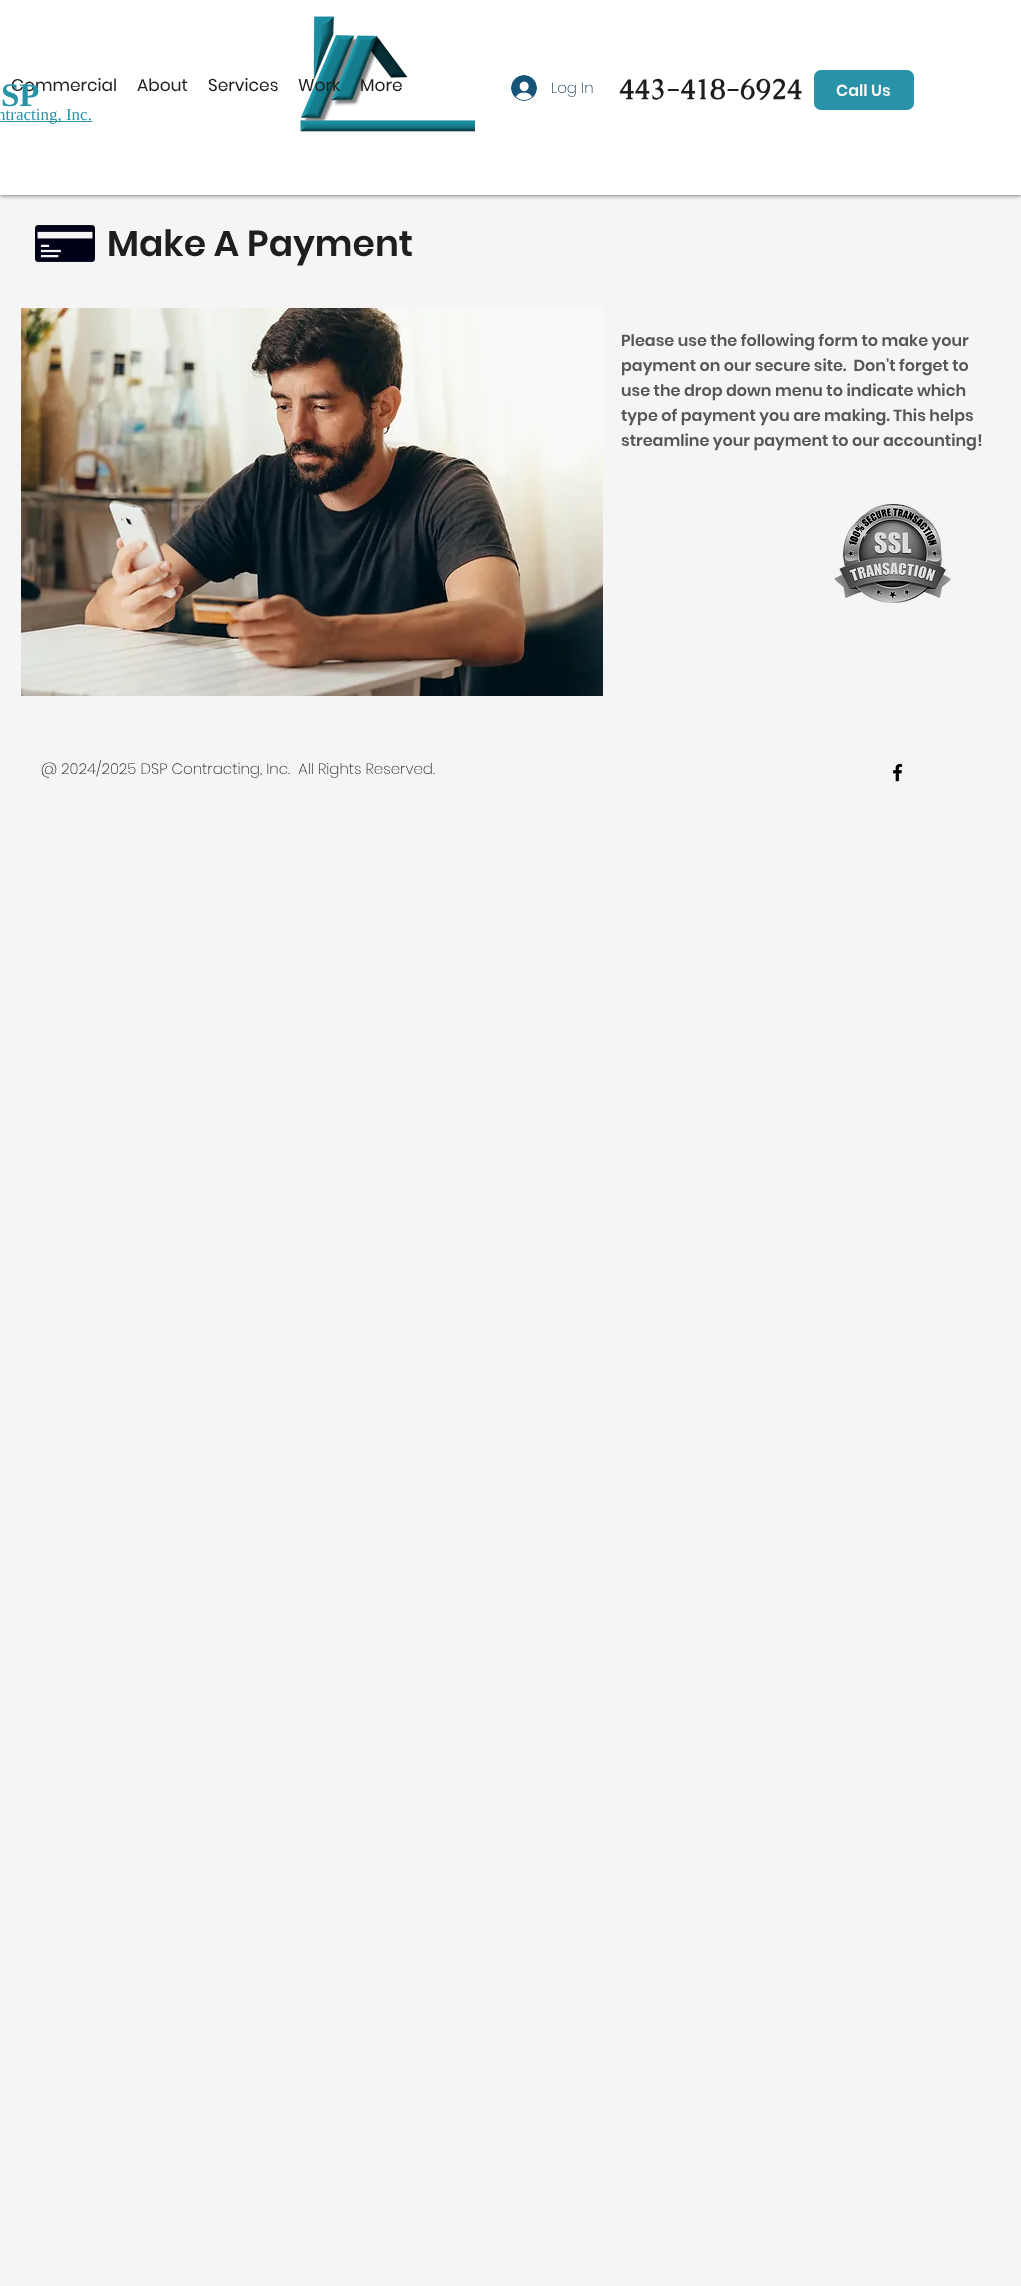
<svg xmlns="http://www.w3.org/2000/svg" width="1021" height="2286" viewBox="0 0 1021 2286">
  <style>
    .t1 { font: 17px Poppins; fill: #1e1e1e; }
    .t2 { font: 200 15px Poppins; fill: #0d344a; }
    .t3 { font: bold 29px Caudex; fill: #1e1e1e; }
    .t4 { font: 600 16px Poppins; fill: #f5f5f5; }
    .t5 { font: bold 33px Liberation Serif; fill: #2893a8; }
    .t6 { font: 17px Liberation Serif; fill: #2893a8; }
    .t7 { font: 600 36px Poppins; fill: #1e1e1e; }
    .t8 { font: 600 16px Poppins; fill: #565656; }
    .t9 { font: 200 15px Poppins; fill: #1e1e1e; }
  </style>
  <rect width="100%" height="100%" fill="#f5f5f5"/>
  <rect x="0" y="0" width="1021" height="195" fill="#000000b3" filter="blur(2.5px)"/>
  <rect x="0" y="0" width="1021" height="195" fill="#fff"/>
  <image x="300" y="16" width="175" height="116" href="images/1.png"/>
  <text x="11" y="91" class="t1">Commercial</text>
  <text x="137" y="91" class="t1">About</text>
  <text x="208" y="91" class="t1">Services</text>
  <text x="298" y="91" class="t1">Work</text>
  <text x="360" y="91" class="t1">More</text>
  <image x="511" y="75" width="26" height="26" href="images/2.png"/>
  <text x="551" y="93" class="t2">Log In</text>
  <text x="619" y="99" class="t3">443-418-6924</text>
  <rect x="814" y="70" width="100" height="40" rx="7" fill="#2893a8"/>
  <text x="836" y="96" class="t4">Call Us</text>
  <text x="1" y="106" class="t5">SP</text>
  <rect x="0" y="121" width="92" height="1" fill="#2893a8"/>
  <text x="-3" y="120" class="t6">ntracting, Inc.</text>
  <image x="35" y="225" width="60" height="37" href="images/3.png"/>
  <text x="107" y="256" class="t7">Make A Payment</text>
  <image x="21" y="308" width="582" height="388" href="images/4.png"/>
  <text x="621" y="346" class="t8">Please use the following form to make your</text>
  <text x="621" y="371" class="t8" xml:space="preserve">payment on our secure site.  Don't forget to</text>
  <text x="621" y="396" class="t8">use the drop down menu to indicate which</text>
  <text x="621" y="421" class="t8">type of payment you are making. This helps</text>
  <text x="621" y="446" class="t8">streamline your payment to our accounting!</text>
  <image x="834" y="504" width="117" height="99" href="images/5.png"/>
  <text x="41" y="774" class="t9" xml:space="preserve">@ 2024/2025 DSP Contracting, Inc.  All Rights Reserved.</text>
  <image x="892" y="763" width="11" height="19" href="images/6.png"/>
</svg>
